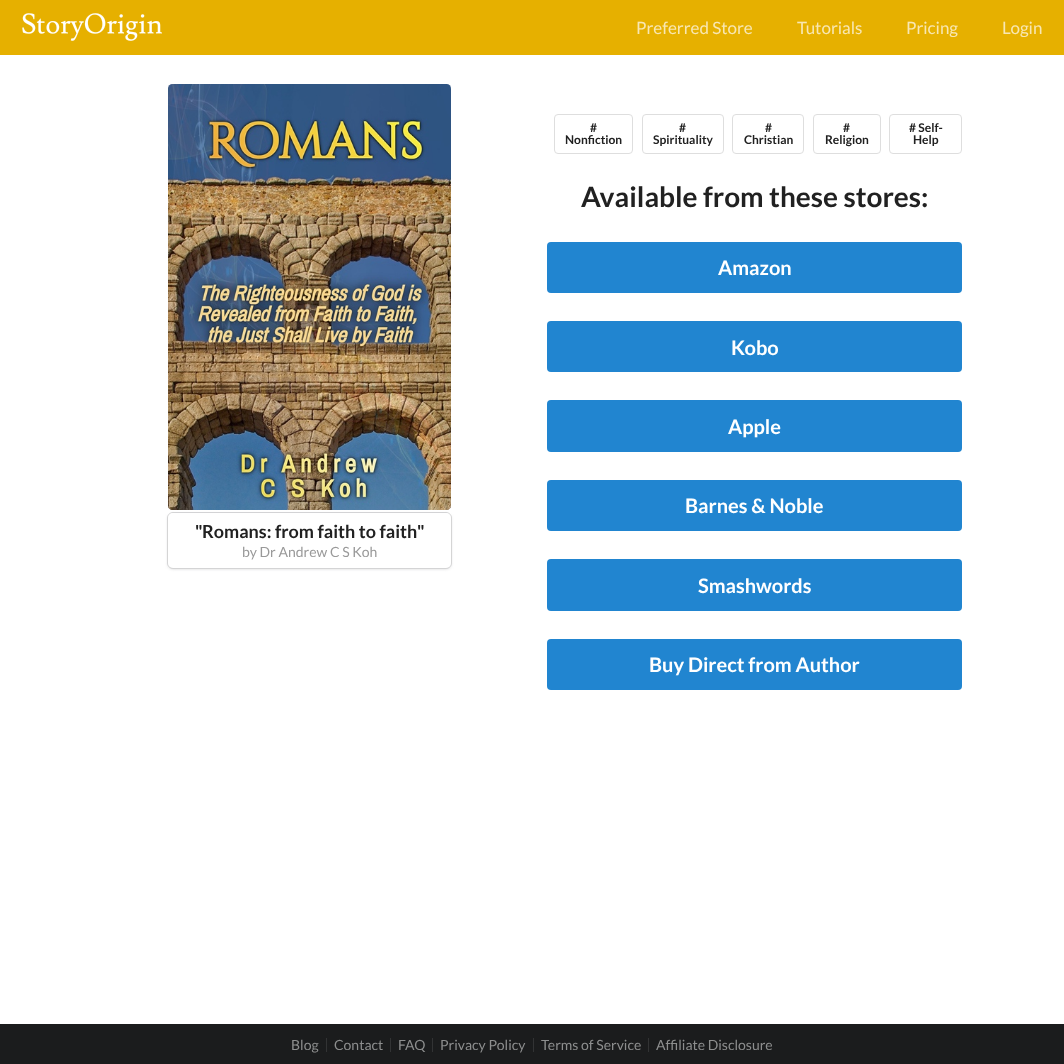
<svg xmlns="http://www.w3.org/2000/svg" width="1064" height="1064" viewBox="0 0 1064 1064">
  <style>
    .t1 { font: 17px Lato; fill: #f8e7b3; }
    .t2 { font: bold 18px Lato; fill: #212121; }
    .t3 { font: 14px Lato; fill: #999; }
    .t4 { font: bold 12px Lato; fill: #212121; }
    .t5 { font: bold 28px Lato; fill: #212121; }
    .t6 { font: bold 20px Lato; fill: #fff; }
    .t7 { font: 14px Lato; fill: #8d8e8e; }
  </style>
  <rect width="100%" height="100%" fill="#fff"/>
  <rect x="0" y="0" width="1064" height="55" fill="#e6b000"/>
  <image x="22" y="13" width="140" height="28" href="images/1.png"/>
  <text x="636" y="34" class="t1">Preferred Store</text>
  <text x="797" y="34" class="t1">Tutorials</text>
  <text x="906" y="34" class="t1">Pricing</text>
  <text x="1002" y="34" class="t1">Login</text>
  <rect x="167.5" y="512.5" width="284" height="56" rx="5.5" fill="none" stroke="#d4d4d5"/>
  <rect x="168" y="514" width="283" height="55" rx="5" fill="#d4d4d5" filter="blur(1.5px)"/>
  <image x="168" y="84" width="283" height="426" href="images/2.png"/>
  <rect x="168" y="513" width="283" height="55" rx="5" fill="#fff"/>
  <text x="195" y="538" class="t2">"</text>
  <text x="202" y="538" class="t2">Romans: from faith to faith</text>
  <text x="417" y="538" class="t2">"</text>
  <text x="242" y="557" class="t3">by Dr Andrew C S Koh</text>
  <rect x="554.5" y="114.5" width="78" height="39" rx="3.5" fill="none" stroke="#dedede"/>
  <text x="590" y="132" class="t4">#</text>
  <text x="565" y="144" class="t4">Nonfiction</text>
  <rect x="642.5" y="114.5" width="81" height="39" rx="3.5" fill="none" stroke="#dedede"/>
  <text x="679" y="132" class="t4">#</text>
  <text x="653" y="144" class="t4">Spirituality</text>
  <rect x="732.5" y="114.5" width="71" height="39" rx="3.5" fill="none" stroke="#dedede"/>
  <text x="765" y="132" class="t4">#</text>
  <text x="744" y="144" class="t4">Christian</text>
  <rect x="813.5" y="114.5" width="67" height="39" rx="3.5" fill="none" stroke="#dedede"/>
  <text x="843" y="132" class="t4">#</text>
  <text x="825" y="144" class="t4">Religion</text>
  <rect x="889.5" y="114.5" width="72" height="39" rx="3.5" fill="none" stroke="#dedede"/>
  <text x="909" y="132" class="t4"># Self-</text>
  <text x="913" y="144" class="t4">Help</text>
  <text x="581" y="207" class="t5">Available from these stores:</text>
  <rect x="547" y="242" width="415" height="51" rx="4" fill="#2185d0"/>
  <text x="718" y="275" class="t6">Amazon</text>
  <rect x="547" y="321" width="415" height="51" rx="4" fill="#2185d0"/>
  <text x="731" y="355" class="t6">Kobo</text>
  <rect x="547" y="400" width="415" height="52" rx="4" fill="#2185d0"/>
  <text x="728" y="434" class="t6">Apple</text>
  <rect x="547" y="480" width="415" height="51" rx="4" fill="#2185d0"/>
  <text x="685" y="513" class="t6">Barnes &amp; Noble</text>
  <rect x="547" y="559" width="415" height="52" rx="4" fill="#2185d0"/>
  <text x="698" y="593" class="t6">Smashwords</text>
  <rect x="547" y="639" width="415" height="51" rx="4" fill="#2185d0"/>
  <text x="649" y="672" class="t6">Buy Direct from Author</text>
  <rect x="0" y="1024" width="1064" height="40" fill="#1b1c1d"/>
  <text x="291" y="1050" class="t7">Blog</text>
  <rect x="326" y="1038" width="1" height="14" fill="#323334"/>
  <text x="334" y="1050" class="t7">Contact</text>
  <rect x="390" y="1038" width="1" height="14" fill="#323334"/>
  <text x="398" y="1050" class="t7">FAQ</text>
  <rect x="432" y="1038" width="1" height="14" fill="#323334"/>
  <text x="440" y="1050" class="t7">Privacy Policy</text>
  <rect x="533" y="1038" width="1" height="14" fill="#323334"/>
  <text x="541" y="1050" class="t7">Terms of Service</text>
  <rect x="648" y="1038" width="1" height="14" fill="#323334"/>
  <text x="656" y="1050" class="t7">Affiliate Disclosure</text>
</svg>
